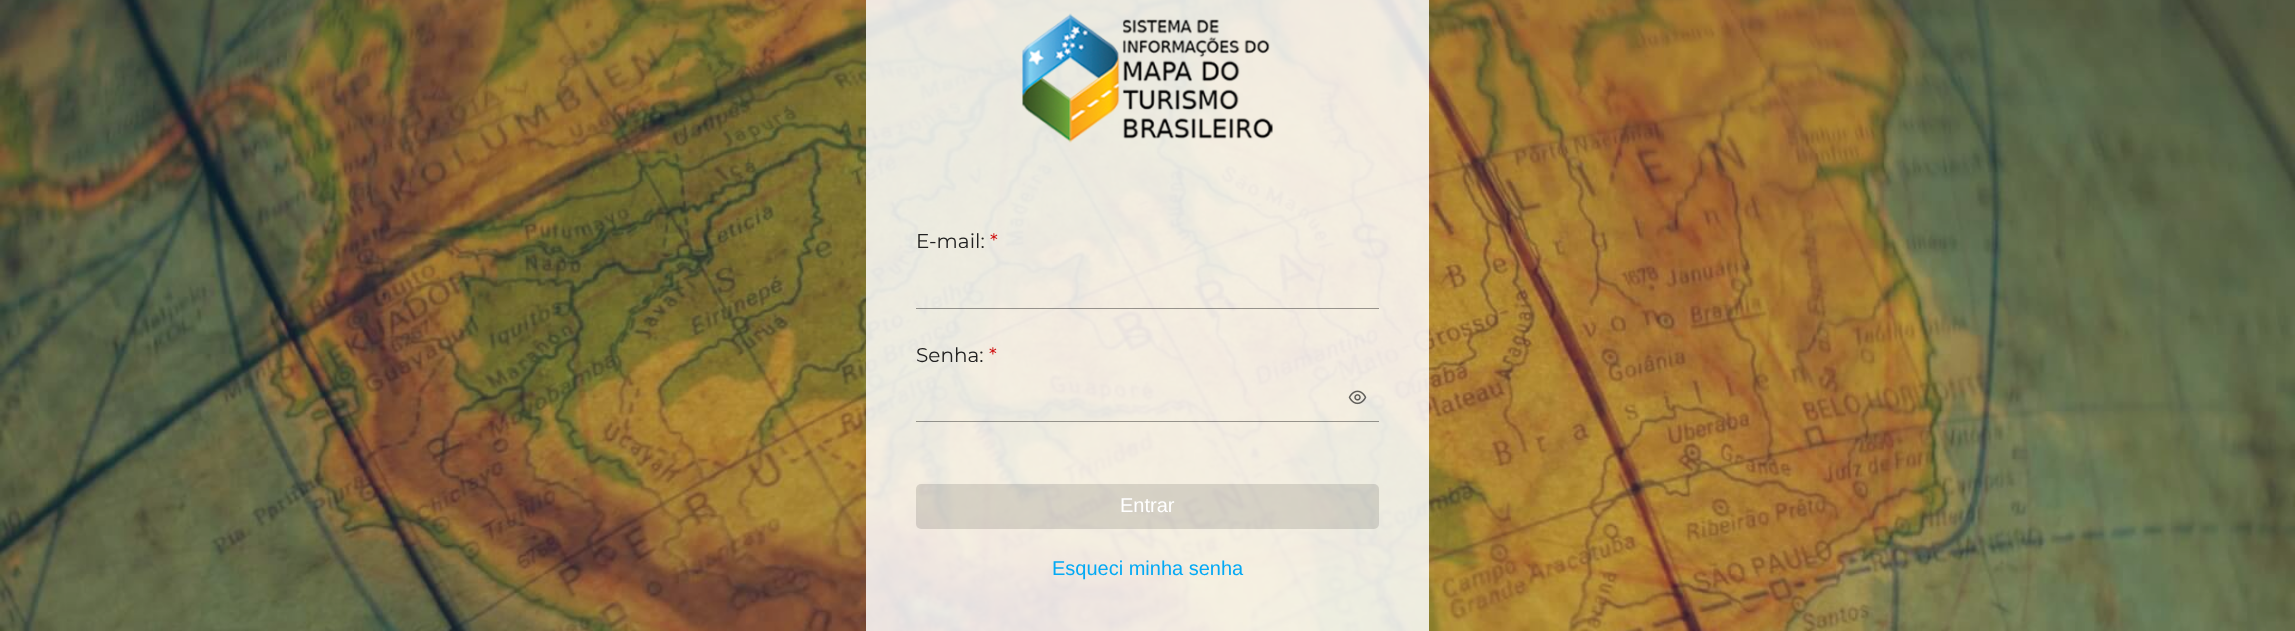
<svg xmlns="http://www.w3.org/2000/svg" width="2295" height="631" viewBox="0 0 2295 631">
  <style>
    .t1 { font: 20px Montserrat; fill: #212121; }
    .t2 { font: 20px Montserrat; fill: #cf0a0a; }
    .t3 { font: 20px Liberation Sans; fill: #fff; }
    .t4 { font: 20px Liberation Sans; fill: #03a9f4; }
  </style>
  <rect width="100%" height="100%" fill="#fff"/>
  <image x="0" y="0" width="2295" height="631" href="images/1.png"/>
  <rect x="866" y="0" width="563" height="631" fill="#ffffffd9"/>
  <image x="1022" y="13" width="251" height="130" href="images/2.png"/>
  <text x="916" y="248" class="t1">E-mail:</text>
  <text x="990" y="248" class="t2">*</text>
  <rect x="916" y="308" width="463" height="1" fill="#00000061"/>
  <text x="916" y="362" class="t1">Senha:</text>
  <text x="989" y="362" class="t2">*</text>
  <image x="1348" y="390" width="19" height="15" href="images/3.png"/>
  <rect x="916" y="421" width="463" height="1" fill="#00000061"/>
  <rect x="916" y="484" width="463" height="45" rx="5" fill="#0000001f"/>
  <text x="1120" y="512" class="t3">Entrar</text>
  <text x="1052" y="575" class="t4">Esqueci minha senha</text>
</svg>
